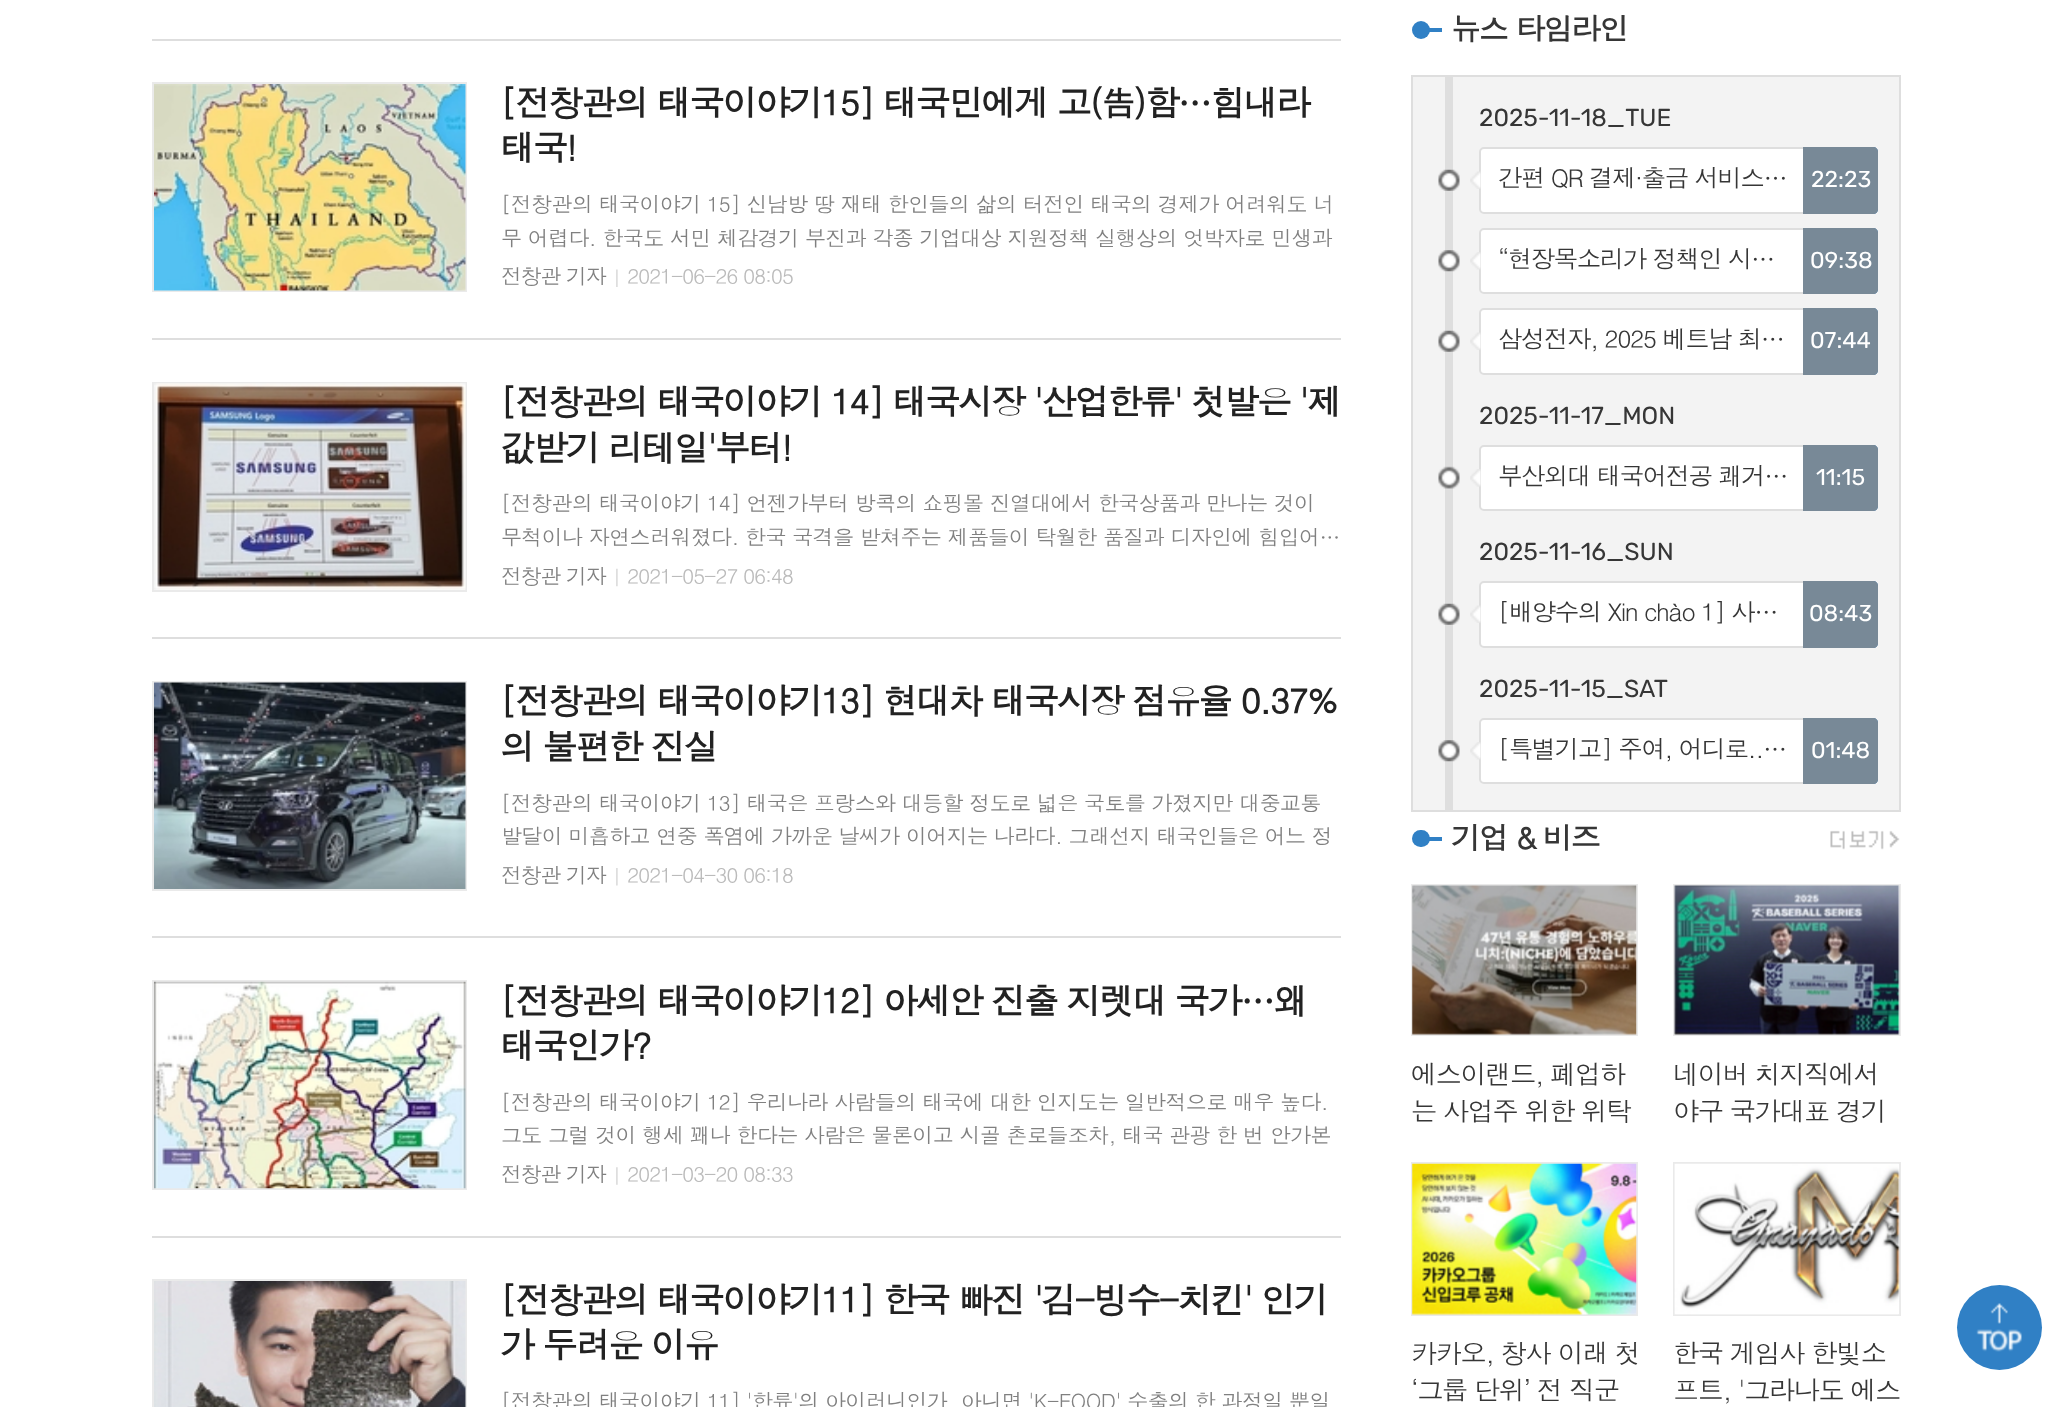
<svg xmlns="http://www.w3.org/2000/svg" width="2052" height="1407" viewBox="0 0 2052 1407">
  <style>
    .t1 { font: bold 35px Dotum; letter-spacing: -2.1px; fill: #222; }
    .t2 { font: 21px Dotum; letter-spacing: -0.63px; fill: #808080; }
    .t3 { font: 21px Dotum; letter-spacing: -1.25px; fill: #808080; }
    .t4 { font: 21px Dotum; letter-spacing: -1.25px; fill: #bbb; }
    .t5 { font: bold 29.75px Dotum; letter-spacing: -1.75px; fill: #363636; }
    .t6 { font: 24.5px Rubik; fill: #363636; }
    .t7 { font: 24.5px Dotum; letter-spacing: -1.5px; fill: #363636; }
    .t8 { font: 23px Rubik; fill: #fff; }
    .t9 { font: 26.25px Dotum; letter-spacing: -1.5px; fill: #363636; }
  </style>
  <rect width="100%" height="100%" fill="#fff"/>
  <rect x="152" y="39" width="1189" height="2" fill="#dedede"/>
  <rect x="152" y="338" width="1189" height="2" fill="#dedede"/>
  <rect x="153" y="83" width="313" height="208" fill="none" stroke="#eaeaea" stroke-width="2"/>
  <image x="154" y="84" width="312" height="207" href="images/1.png"/>
  <text x="500" y="116" class="t1">[전창관의 태국이야기15] 태국민에게 고(告)함…힘내라</text>
  <text x="500" y="161" class="t1">태국!</text>
  <text x="501" y="212" class="t2">[전창관의 태국이야기 15] 신남방 땅 재태 한인들의 삶의 터전인 태국의 경제가 어려워도 너</text>
  <text x="501" y="246" class="t2">무 어렵다. 한국도 서민 체감경기 부진과 각종 기업대상 지원정책 실행상의 엇박자로 민생과</text>
  <text x="501" y="284" class="t3">전창관 기자</text>
  <image x="616" y="269" width="2" height="18" href="images/2.png"/>
  <text x="627" y="284" class="t4">2021-06-26 08:05</text>
  <rect x="152" y="637" width="1189" height="2" fill="#dedede"/>
  <rect x="153" y="383" width="313" height="208" fill="none" stroke="#eaeaea" stroke-width="2"/>
  <image x="154" y="383" width="312" height="207" href="images/3.png"/>
  <text x="500" y="415" class="t1">[전창관의 태국이야기 14] 태국시장 '산업한류' 첫발은 '제</text>
  <text x="500" y="461" class="t1">값받기 리테일'부터!</text>
  <text x="501" y="511" class="t2">[전창관의 태국이야기 14] 언젠가부터 방콕의 쇼핑몰 진열대에서 한국상품과 만나는 것이</text>
  <text x="501" y="545" class="t2">무척이나 자연스러워졌다. 한국 국격을 받쳐주는 제품들이 탁월한 품질과 디자인에 힘입어…</text>
  <text x="501" y="584" class="t3">전창관 기자</text>
  <image x="616" y="568" width="2" height="19" href="images/4.png"/>
  <text x="627" y="584" class="t4">2021-05-27 06:48</text>
  <rect x="152" y="936" width="1189" height="2" fill="#dedede"/>
  <rect x="153" y="682" width="313" height="208" fill="none" stroke="#eaeaea" stroke-width="2"/>
  <image x="154" y="682" width="312" height="207" href="images/5.png"/>
  <text x="500" y="714" class="t1">[전창관의 태국이야기13] 현대차 태국시장 점유율 0.37%</text>
  <text x="500" y="760" class="t1">의 불편한 진실</text>
  <text x="501" y="811" class="t2">[전창관의 태국이야기 13] 태국은 프랑스와 대등할 정도로 넓은 국토를 가졌지만 대중교통</text>
  <text x="501" y="844" class="t2">발달이 미흡하고 연중 폭염에 가까운 날씨가 이어지는 나라다. 그래선지 태국인들은 어느 정</text>
  <text x="501" y="883" class="t3">전창관 기자</text>
  <image x="616" y="868" width="2" height="18" href="images/6.png"/>
  <text x="627" y="883" class="t4">2021-04-30 06:18</text>
  <rect x="152" y="1236" width="1189" height="2" fill="#dedede"/>
  <rect x="153" y="981" width="313" height="208" fill="none" stroke="#eaeaea" stroke-width="2"/>
  <image x="154" y="981" width="312" height="208" href="images/7.png"/>
  <text x="500" y="1014" class="t1">[전창관의 태국이야기12] 아세안 진출 지렛대 국가…왜</text>
  <text x="500" y="1059" class="t1">태국인가?</text>
  <text x="501" y="1110" class="t2">[전창관의 태국이야기 12] 우리나라 사람들의 태국에 대한 인지도는 일반적으로 매우 높다.</text>
  <text x="501" y="1143" class="t2">그도 그럴 것이 행세 꽤나 한다는 사람은 물론이고 시골 촌로들조차, 태국 관광 한 번 안가본</text>
  <text x="501" y="1182" class="t3">전창관 기자</text>
  <image x="616" y="1167" width="2" height="18" href="images/8.png"/>
  <text x="627" y="1182" class="t4">2021-03-20 08:33</text>
  <rect x="153" y="1280" width="313" height="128" fill="none" stroke="#eaeaea" stroke-width="2"/>
  <image x="154" y="1281" width="312" height="126" href="images/9.png"/>
  <text x="500" y="1313" class="t1">[전창관의 태국이야기11] 한국 빠진 '김-빙수-치킨' 인기</text>
  <text x="500" y="1358" class="t1">가 두려운 이유</text>
  <text x="501" y="1409" class="t2">[전창관의 태국이야기 11] '한류'의 아이러니인가, 아니면 'K-FOOD' 수출의 한 과정일 뿐일</text>
  <rect x="1429" y="28" width="13" height="4" fill="#3080c5"/>
  <circle cx="1421" cy="30" r="9" fill="#3080c5"/>
  <text x="1451" y="40" class="t5">뉴스 타임라인</text>
  <rect x="1413" y="77" width="486" height="733" fill="#f3f3f3"/>
  <rect x="1445" y="75" width="8" height="737" fill="#dedede"/>
  <rect x="1412" y="76" width="488" height="735" fill="none" stroke="#dedede" stroke-width="2"/>
  <text x="1479" y="126" class="t6">2025-11-18_TUE</text>
  <image x="1438" y="169" width="22" height="22" href="images/10.png"/>
  <rect x="1480" y="148" width="397" height="65" rx="4" fill="#fff" stroke="#dedede" stroke-width="2"/>
  <image x="1470" y="171" width="11" height="18" href="images/11.png"/>
  <text x="1498" y="187" class="t7">간편 QR 결제·출금 서비스…</text>
  <path d="M1803 147H1873C1876 147 1878 149 1878 152V209C1878 212 1876 214 1873 214H1803Z" fill="#3080c5"/>
  <path d="M1803 147H1873C1876 147 1878 149 1878 152V209C1878 212 1876 214 1873 214H1803Z" fill="#8b8b8bcc"/>
  <text x="1811" y="187" class="t8">22:23</text>
  <image x="1438" y="250" width="22" height="22" href="images/12.png"/>
  <rect x="1480" y="229" width="397" height="64" rx="4" fill="#fff" stroke="#dedede" stroke-width="2"/>
  <image x="1470" y="252" width="11" height="18" href="images/13.png"/>
  <text x="1498" y="268" class="t7">“현장목소리가 정책인 시…</text>
  <path d="M1803 228H1873C1876 228 1878 230 1878 233V289C1878 292 1876 294 1873 294H1803Z" fill="#3080c5"/>
  <path d="M1803 228H1873C1876 228 1878 230 1878 233V289C1878 292 1876 294 1873 294H1803Z" fill="#8b8b8bcc"/>
  <text x="1810" y="268" class="t8">09:38</text>
  <image x="1438" y="330" width="22" height="22" href="images/14.png"/>
  <rect x="1480" y="309" width="397" height="65" rx="4" fill="#fff" stroke="#dedede" stroke-width="2"/>
  <image x="1470" y="332" width="11" height="18" href="images/11.png"/>
  <text x="1498" y="348" class="t7">삼성전자, 2025 베트남 최…</text>
  <path d="M1803 308H1873C1876 308 1878 310 1878 313V370C1878 373 1876 375 1873 375H1803Z" fill="#3080c5"/>
  <path d="M1803 308H1873C1876 308 1878 310 1878 313V370C1878 373 1876 375 1873 375H1803Z" fill="#8b8b8bcc"/>
  <text x="1810" y="348" class="t8">07:44</text>
  <text x="1479" y="424" class="t6">2025-11-17_MON</text>
  <image x="1438" y="466" width="22" height="23" href="images/15.png"/>
  <rect x="1480" y="446" width="397" height="64" rx="4" fill="#fff" stroke="#dedede" stroke-width="2"/>
  <image x="1470" y="469" width="11" height="18" href="images/16.png"/>
  <text x="1498" y="485" class="t7">부산외대 태국어전공 쾌거…</text>
  <path d="M1803 445H1873C1876 445 1878 447 1878 450V506C1878 509 1876 511 1873 511H1803Z" fill="#3080c5"/>
  <path d="M1803 445H1873C1876 445 1878 447 1878 450V506C1878 509 1876 511 1873 511H1803Z" fill="#8b8b8bcc"/>
  <text x="1816" y="485" class="t8">11:15</text>
  <text x="1479" y="560" class="t6">2025-11-16_SUN</text>
  <image x="1438" y="603" width="22" height="22" href="images/17.png"/>
  <rect x="1480" y="582" width="397" height="65" rx="4" fill="#fff" stroke="#dedede" stroke-width="2"/>
  <image x="1470" y="605" width="11" height="18" href="images/18.png"/>
  <text x="1498" y="621" class="t7">[배양수의 Xin chào 1] 사…</text>
  <path d="M1803 581H1873C1876 581 1878 583 1878 586V643C1878 646 1876 648 1873 648H1803Z" fill="#3080c5"/>
  <path d="M1803 581H1873C1876 581 1878 583 1878 586V643C1878 646 1876 648 1873 648H1803Z" fill="#8b8b8bcc"/>
  <text x="1809" y="621" class="t8">08:43</text>
  <text x="1479" y="697" class="t6">2025-11-15_SAT</text>
  <image x="1438" y="740" width="22" height="22" href="images/12.png"/>
  <rect x="1480" y="719" width="397" height="64" rx="4" fill="#fff" stroke="#dedede" stroke-width="2"/>
  <image x="1470" y="742" width="11" height="18" href="images/13.png"/>
  <text x="1498" y="758" class="t7">[특별기고] 주여, 어디로..…</text>
  <path d="M1803 718H1873C1876 718 1878 720 1878 723V779C1878 782 1876 784 1873 784H1803Z" fill="#3080c5"/>
  <path d="M1803 718H1873C1876 718 1878 720 1878 723V779C1878 782 1876 784 1873 784H1803Z" fill="#8b8b8bcc"/>
  <text x="1811" y="758" class="t8">01:48</text>
  <rect x="1429" y="837" width="13" height="4" fill="#3080c5"/>
  <rect x="1412" y="830" width="18" height="17" rx="8.5" fill="#3080c5"/>
  <text x="1451" y="849" class="t5">기업 &amp; 비즈</text>
  <image x="1830" y="830" width="70" height="20" href="images/19.png"/>
  <rect x="1412" y="885" width="225" height="150" fill="none" stroke="#eaeaea" stroke-width="2"/>
  <image x="1412" y="885" width="225" height="150" href="images/20.png"/>
  <text x="1411" y="1084" class="t9">에스이랜드, 폐업하</text>
  <text x="1411" y="1121" class="t9">는 사업주 위한 위탁</text>
  <rect x="1674" y="885" width="226" height="150" fill="none" stroke="#eaeaea" stroke-width="2"/>
  <image x="1674" y="885" width="226" height="150" href="images/21.png"/>
  <text x="1673" y="1084" class="t9">네이버 치지직에서</text>
  <text x="1673" y="1121" class="t9">야구 국가대표 경기</text>
  <rect x="1412" y="1163" width="225" height="152" fill="none" stroke="#eaeaea" stroke-width="2"/>
  <image x="1412" y="1163" width="225" height="152" href="images/22.png"/>
  <text x="1411" y="1363" class="t9">카카오, 창사 이래 첫</text>
  <text x="1411" y="1400" class="t9">‘그룹 단위’ 전 직군</text>
  <rect x="1674" y="1163" width="226" height="152" fill="none" stroke="#eaeaea" stroke-width="2"/>
  <image x="1674" y="1163" width="226" height="152" href="images/23.png"/>
  <text x="1673" y="1363" class="t9">한국 게임사 한빛소</text>
  <text x="1673" y="1400" class="t9">프트, '그라나도 에스</text>
  <circle cx="1999.5" cy="1327.5" r="42.5" fill="#3080c5"/>
  <image x="1976" y="1303" width="46" height="49" href="images/24.png"/>
</svg>
